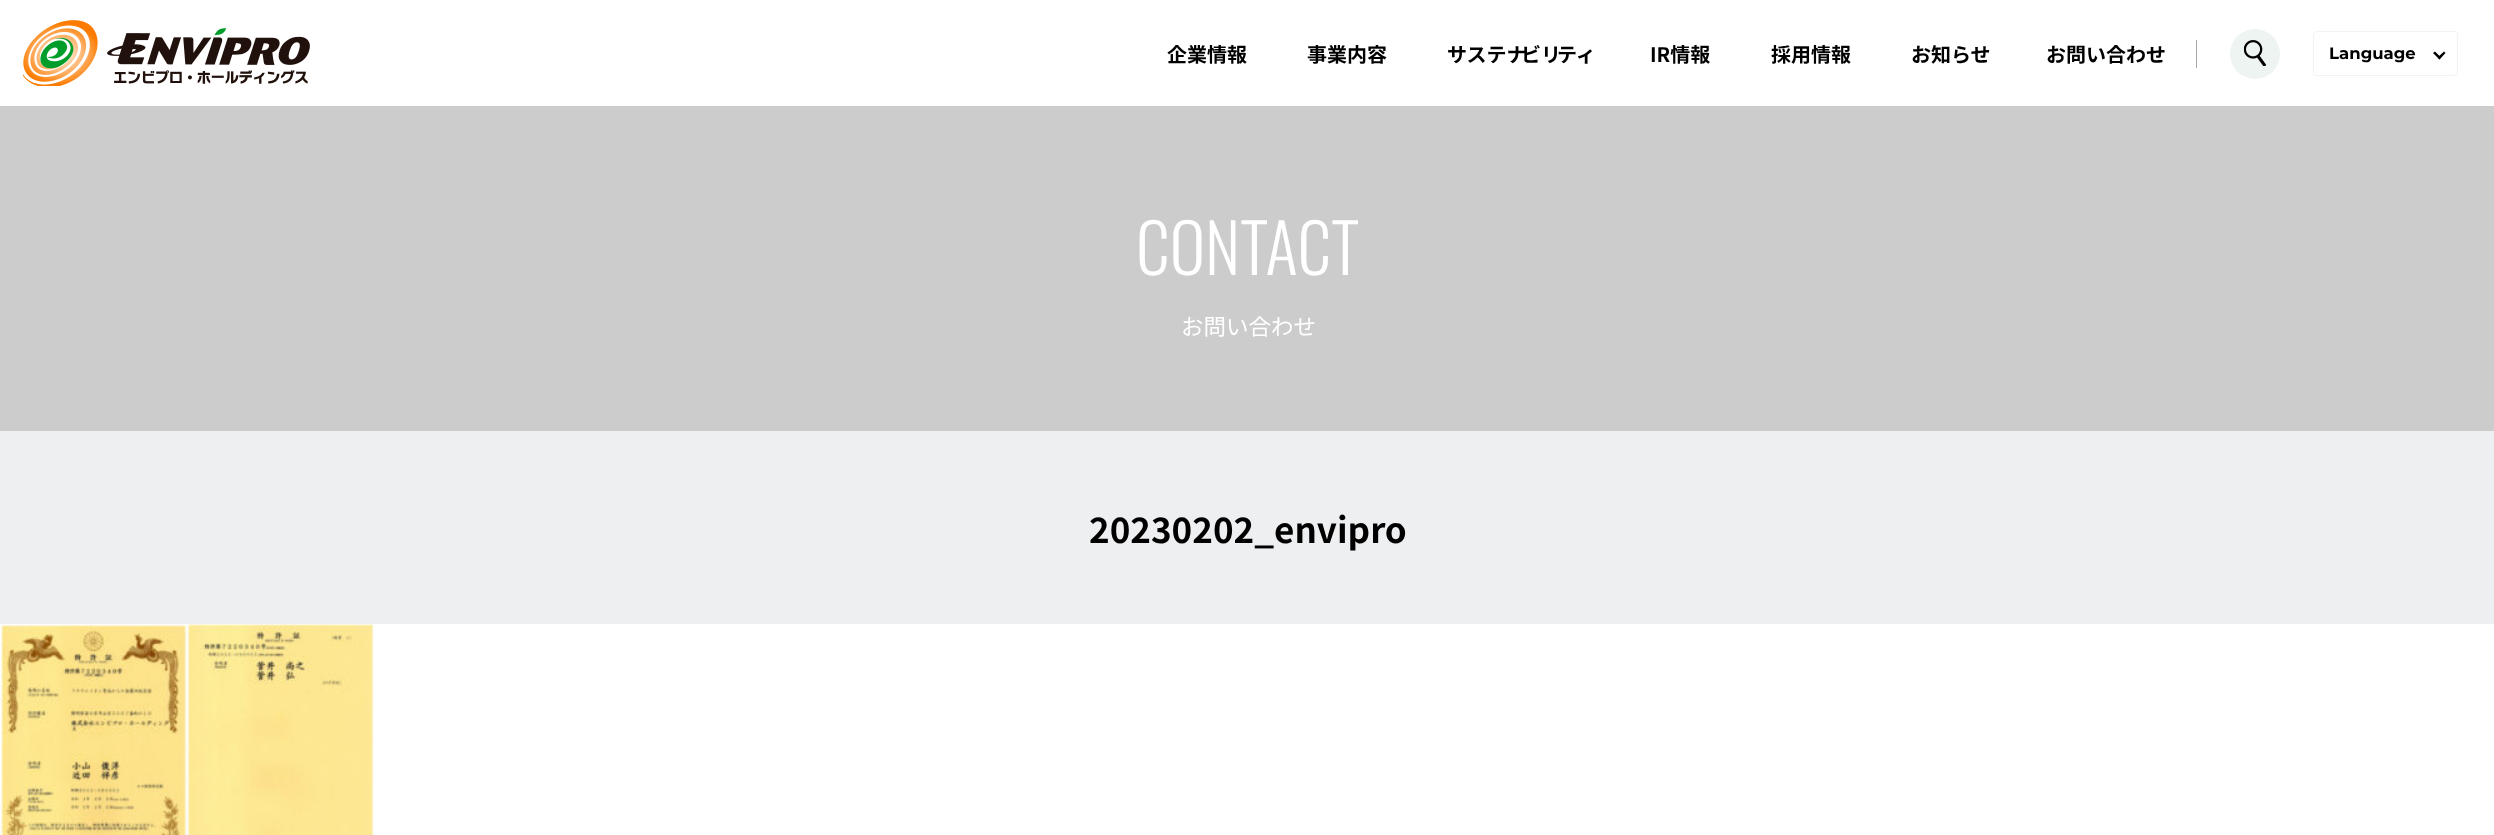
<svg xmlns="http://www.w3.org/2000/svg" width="2494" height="835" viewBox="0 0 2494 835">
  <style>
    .t1 { font: bold 20px Noto Sans JP; fill: #000; }
    .t2 { font: bold 16.5px Montserrat; fill: #000; }
    .t3 { font: 300 67.5px Oswald; fill: #fff; }
    .t4 { font: 22.5px Noto Sans JP; fill: #fff; }
    .t5 { font: bold 35px Noto Sans JP; fill: #000; }
  </style>
  <rect width="100%" height="100%" fill="#fff"/>
  <image x="23" y="20" width="287" height="66" href="images/1.png"/>
  <text x="1167" y="62" class="t1">企業情報</text>
  <text x="1307" y="62" class="t1">事業内容</text>
  <text x="1447" y="62" class="t1">サステナ</text>
  <text x="1521" y="62" class="t1">ビリ</text>
  <text x="1557" y="62" class="t1">ティ</text>
  <text x="1650" y="62" class="t1">IR情報</text>
  <text x="1771" y="62" class="t1">採用情報</text>
  <text x="1911" y="62" class="t1">お知らせ</text>
  <text x="2046" y="62" class="t1">お問い合わせ</text>
  <rect x="2196" y="40" width="1" height="28" fill="#a8a8a8"/>
  <circle cx="2255" cy="54" r="25" fill="#edf4f1"/>
  <image x="2244" y="40" width="22" height="26" href="images/2.png"/>
  <rect x="2313.5" y="31.5" width="144" height="44" rx="3.5" fill="none" stroke="#edf4f1"/>
  <text x="2329" y="59" class="t2">Language</text>
  <path d="M2444 51.5L2445.5 53L2439.5 59.5L2437.5 57.5Z" fill="#000"/>
  <path d="M2435 51.5L2441 57.5L2439.5 59.5L2433 53Z" fill="#000"/>
  <rect x="0" y="106" width="2494" height="325" fill="#ccc"/>
  <text x="1136" y="275" class="t3">CONTACT</text>
  <text x="1181" y="335" class="t4">お問い合わせ</text>
  <rect x="0" y="431" width="2494" height="193" fill="#edeff1"/>
  <text x="1089" y="543" class="t5">20230202_envipro</text>
  <image x="0" y="624" width="375" height="211" href="images/3.png"/>
</svg>
